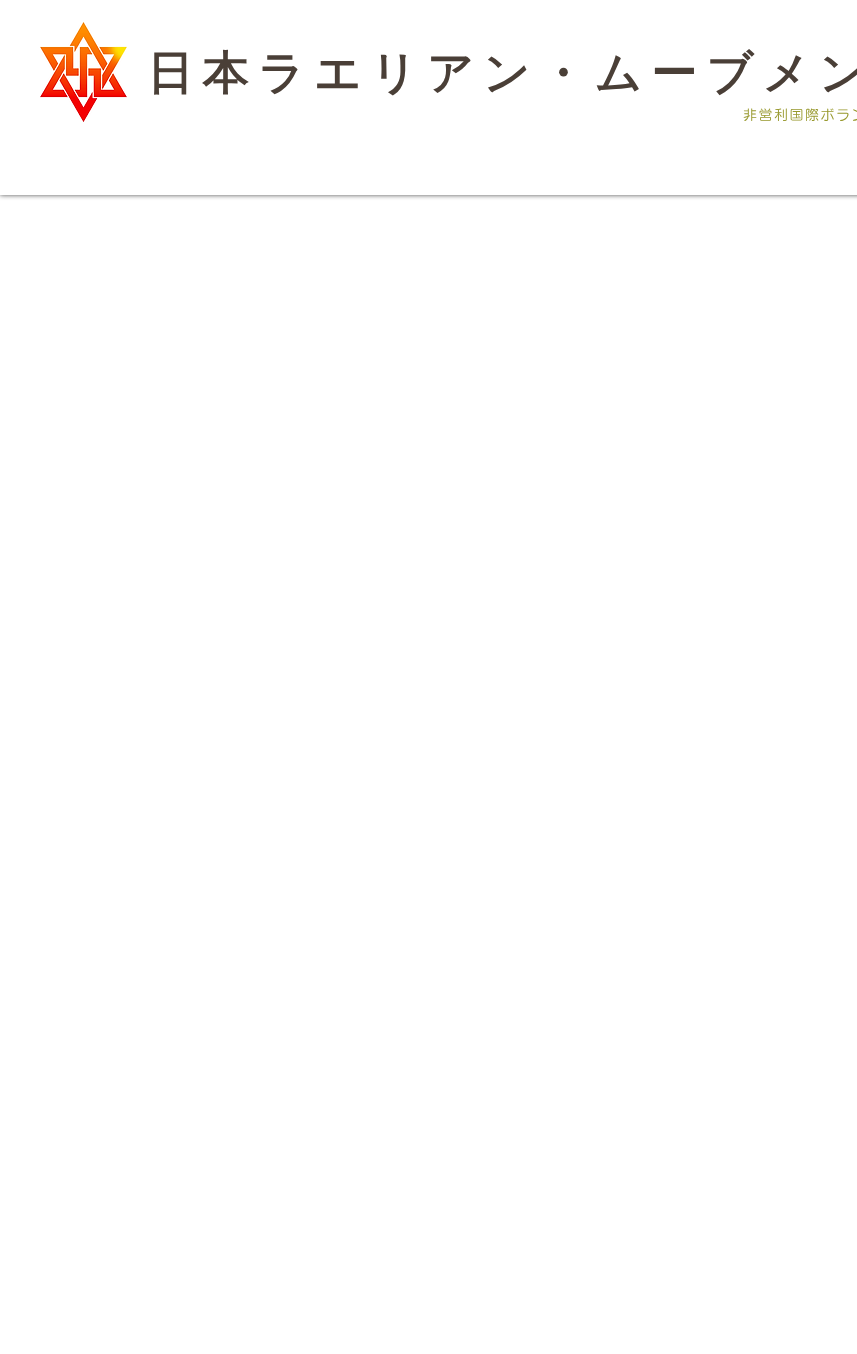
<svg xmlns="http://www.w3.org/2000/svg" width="857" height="1354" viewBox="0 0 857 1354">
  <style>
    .t1 { font: bold 46px WenQuanYi Zen Hei; letter-spacing: 9.25px; fill: #4a3f37; }
    .t2 { font: 500 14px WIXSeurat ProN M; letter-spacing: 1.5px; fill: #98992e; }
  </style>
  <rect width="100%" height="100%" fill="#fff"/>
  <rect x="0" y="0" width="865" height="195" fill="#000000b3" filter="blur(2.5px)"/>
  <rect x="0" y="0" width="857" height="195" fill="#fff"/>
  <image x="40" y="22" width="87" height="100" href="images/1.png"/>
  <text x="147" y="89" class="t1">日本ラエリアン・ムーブメン</text>
  <text x="743" y="120" class="t2">非営利国際ボラン</text>
</svg>
